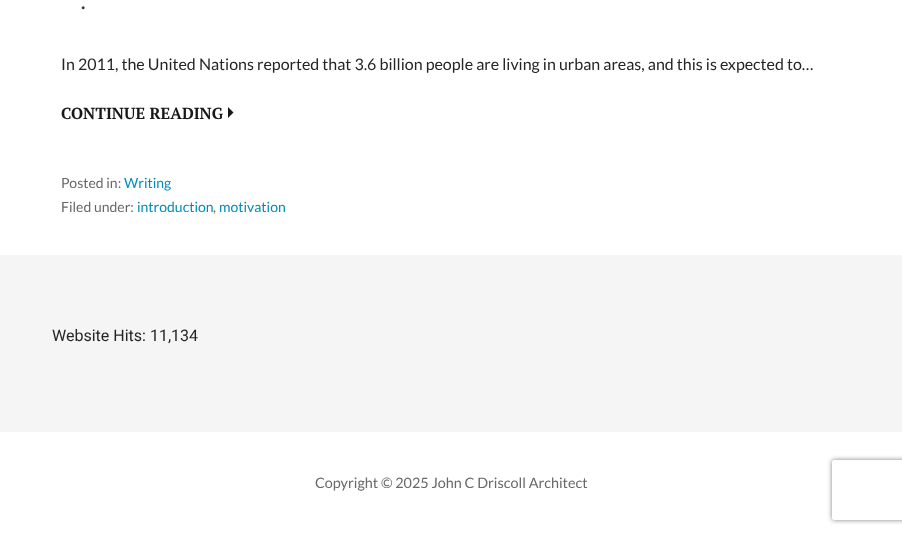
<svg xmlns="http://www.w3.org/2000/svg" width="902" height="534" viewBox="0 0 902 534">
  <style>
    .t1 { font: 300 32px Lato; fill: #353535; }
    .t2 { font: 16px Lato; fill: #252525; }
    .t3 { font: bold 16px PT Serif; fill: #181818; }
    .t4 { font: 14px Lato; fill: #686868; }
    .t5 { font: 14px Lato; fill: #008cba; }
    .t6 { font: 16px Roboto; fill: #252525; }
    .t7 { font: 14.4px Lato; fill: #686868; }
  </style>
  <defs>
    <clipPath id="clip1"><path d="M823 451H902V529H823ZM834 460H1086C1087 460 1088 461 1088 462V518C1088 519 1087 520 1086 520H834C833 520 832 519 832 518V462C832 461 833 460 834 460Z" clip-rule="evenodd"/></clipPath>
  </defs>
  <rect width="100%" height="100%" fill="#fff"/>
  <text x="80" y="9" class="t1">.</text>
  <text x="61" y="70" class="t2">In 2011, the United Nations reported that 3.6 billion people are living in urban areas, and this is expected to…</text>
  <text x="61" y="119" class="t3">CONTINUE READING</text>
  <path d="M228 118L233.5 112.5L228 107Z" fill="#181818"/>
  <text x="61" y="188" class="t4">Posted in:</text>
  <text x="124" y="188" class="t5">Writing</text>
  <text x="61" y="212" class="t4">Filed under:</text>
  <text x="137" y="212" class="t5">introduction</text>
  <text x="213" y="212" class="t4">,</text>
  <text x="219" y="212" class="t5">motivation</text>
  <rect x="0" y="255" width="902" height="177" fill="#f5f5f5"/>
  <text x="52" y="341" class="t6">Website Hits: 11,134</text>
  <text x="315" y="488" class="t7">Copyright © 2025 John C Driscoll Architect</text>
  <g clip-path="url(#clip1)">
    <rect x="832" y="460" width="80" height="60" rx="2" fill="#808080" filter="blur(2.5px)"/>
  </g>
</svg>
